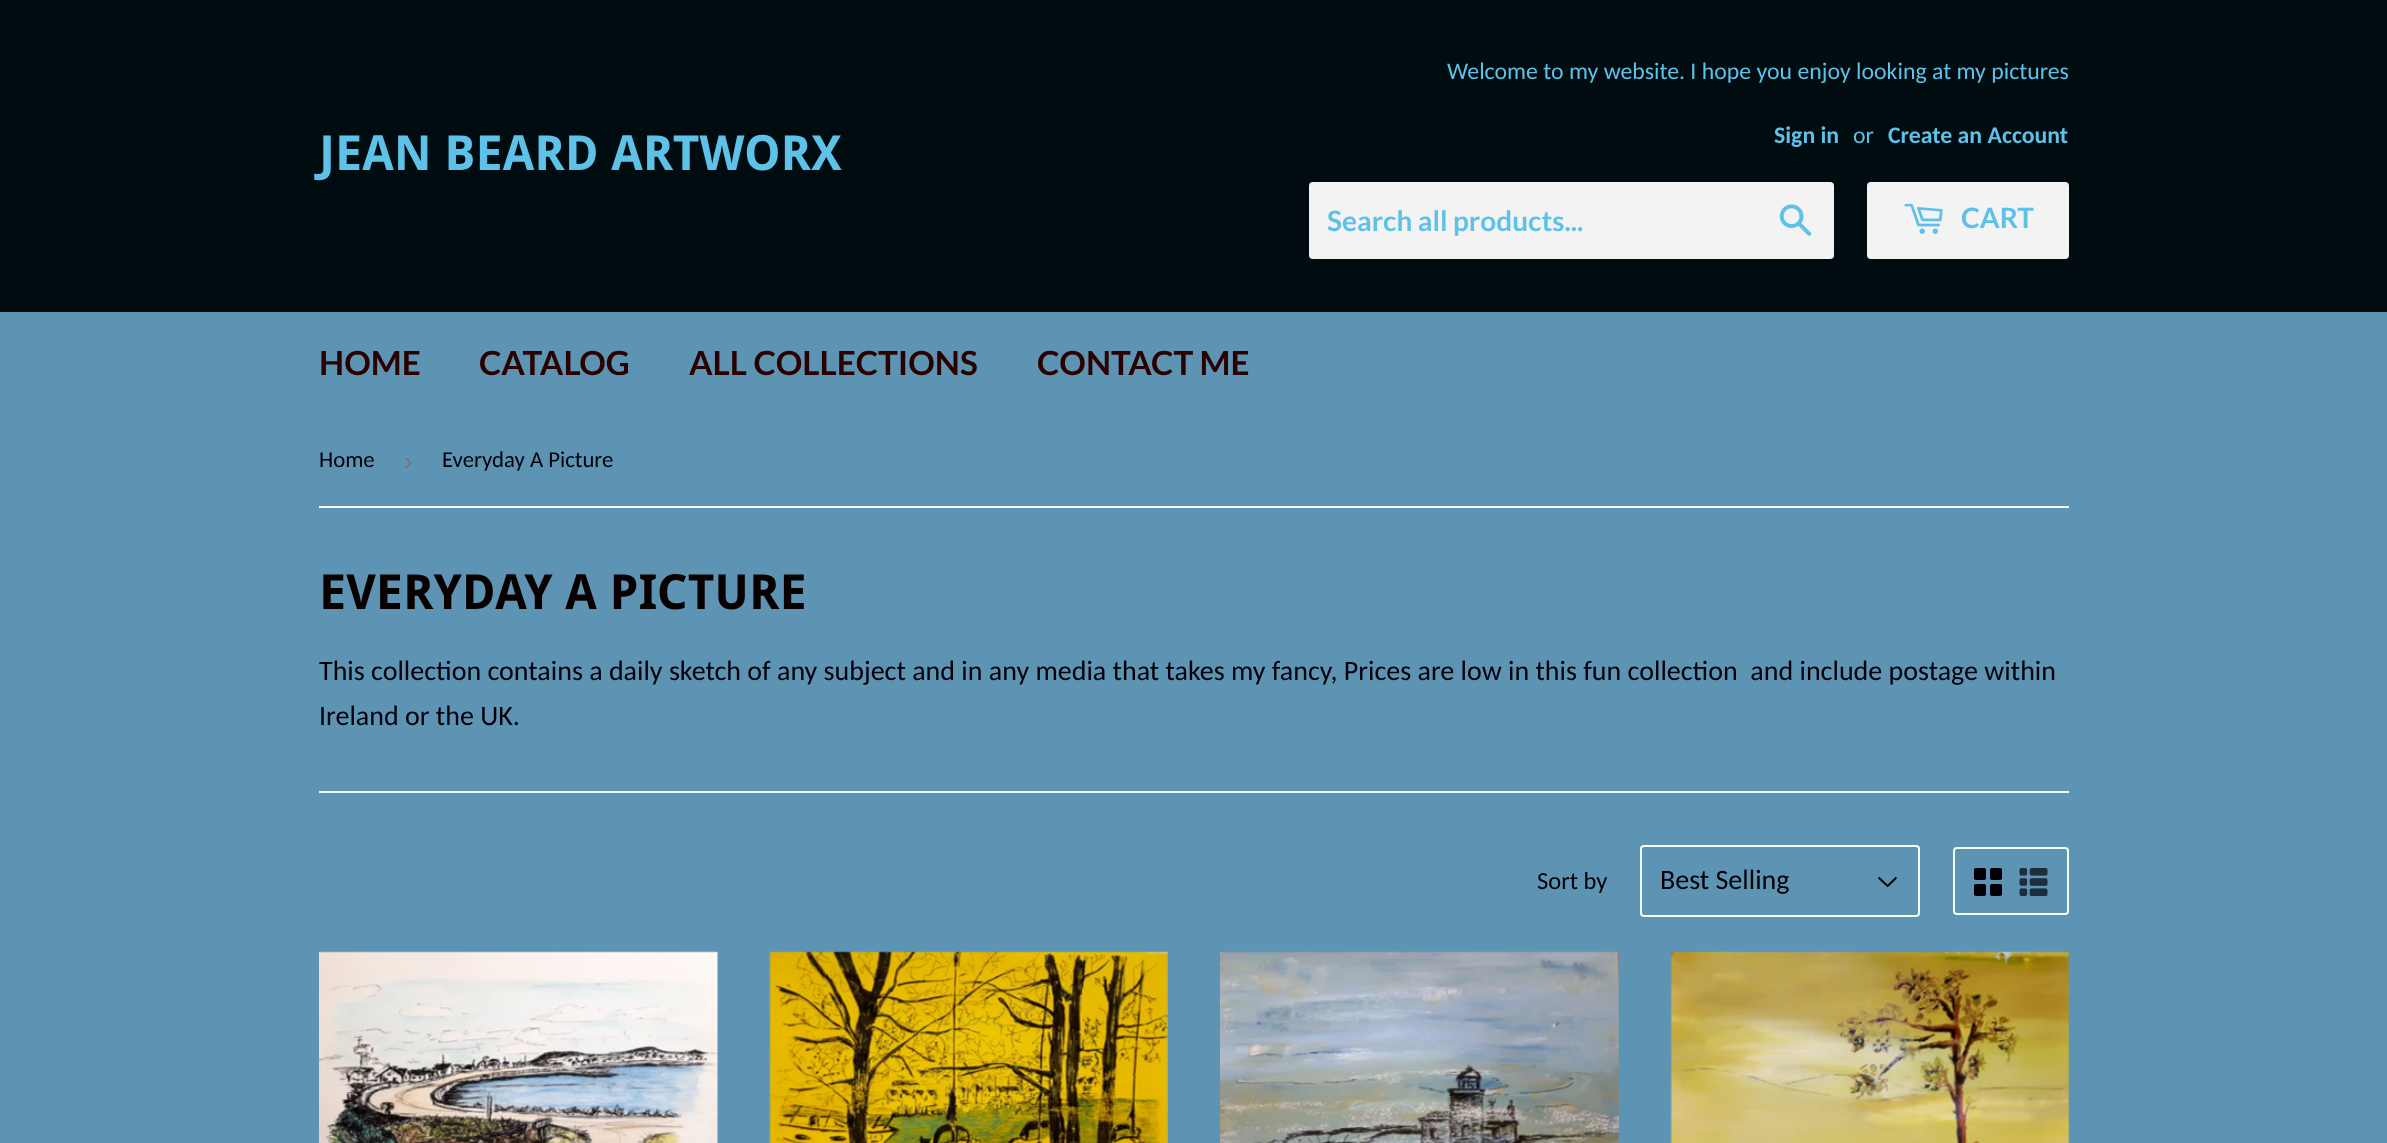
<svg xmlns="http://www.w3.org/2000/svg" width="2387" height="1143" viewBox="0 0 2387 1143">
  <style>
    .t1 { font: bold 48.5px Droid Sans; fill: #5dc1e8; }
    .t2 { font: 23.8px Carlito; fill: #5dc1e8; }
    .t3 { font: bold 23.8px Carlito; fill: #5dc1e8; }
    .t4 { font: bold 28px Lato; fill: #5dc1e8; }
    .t5 { font: bold 33.25px Lato; fill: #2a0000; }
    .t6 { font: 22.75px Carlito; fill: #010008; }
    .t7 { font: 26px Liberation Sans; fill: #767676; }
    .t8 { font: bold 48.5px Droid Sans; fill: #090000; }
    .t9 { font: 28px Carlito; fill: #010008; }
    .t10 { font: 24.5px Carlito; fill: #010008; }
  </style>
  <rect width="100%" height="100%" fill="#5e94b3"/>
  <rect x="0" y="0" width="2387" height="312" fill="#010c10"/>
  <text x="319" y="170" class="t1">JEAN BEARD ARTWORX</text>
  <text x="1447" y="79" class="t2">Welcome to my website. I hope you enjoy looking at my pictures</text>
  <text x="1774" y="143" class="t3">Sign in</text>
  <text x="1853" y="143" class="t2">or</text>
  <text x="1888" y="143" class="t3">Create an Account</text>
  <rect x="1309" y="182" width="525" height="77" rx="4" fill="#f3f3f3"/>
  <text x="1327" y="231" class="t4">Search all products...</text>
  <image x="1779" y="204" width="33" height="32" href="images/1.png"/>
  <rect x="1867" y="182" width="202" height="77" rx="4" fill="#f3f3f3"/>
  <image x="1904" y="203" width="39" height="31" href="images/2.png"/>
  <text x="1961" y="228" class="t4">CART</text>
  <text x="319" y="375" class="t5">HOME</text>
  <text x="479" y="375" class="t5">CATALOG</text>
  <text x="689" y="375" class="t5">ALL COLLECTIONS</text>
  <text x="1037" y="375" class="t5">CONTACT ME</text>
  <rect x="319" y="506" width="1750" height="2" fill="#f3fef5"/>
  <text x="319" y="467" class="t6">Home</text>
  <text x="404" y="470" class="t7">›</text>
  <text x="442" y="467" class="t6">Everyday A Picture</text>
  <text x="319" y="609" class="t8">EVERYDAY A PICTURE</text>
  <text x="319" y="680" class="t9" xml:space="preserve">This collection contains a daily sketch of any subject and in any media that takes my fancy, Prices are low in this fun collection  and include postage within</text>
  <text x="319" y="725" class="t9">Ireland or the UK.</text>
  <rect x="319" y="791" width="1750" height="2" fill="#f3fef5"/>
  <text x="1537" y="889" class="t10">Sort by</text>
  <image x="1878" y="876" width="19" height="12" href="images/3.png"/>
  <rect x="1641" y="846" width="278" height="70" rx="3" fill="none" stroke="#f3fef5" stroke-width="2"/>
  <text x="1660" y="889" class="t9">Best Selling</text>
  <rect x="1954" y="848" width="114" height="66" rx="3" fill="none" stroke="#f3fef5" stroke-width="2"/>
  <image x="1974" y="868" width="28" height="28" href="images/4.png"/>
  <image x="2019" y="868" width="29" height="28" href="images/5.png"/>
  <image x="319" y="951" width="399" height="192" href="images/6.png"/>
  <image x="769" y="951" width="399" height="192" href="images/7.png"/>
  <image x="1220" y="951" width="399" height="192" href="images/8.png"/>
  <image x="1670" y="951" width="399" height="192" href="images/9.png"/>
</svg>
